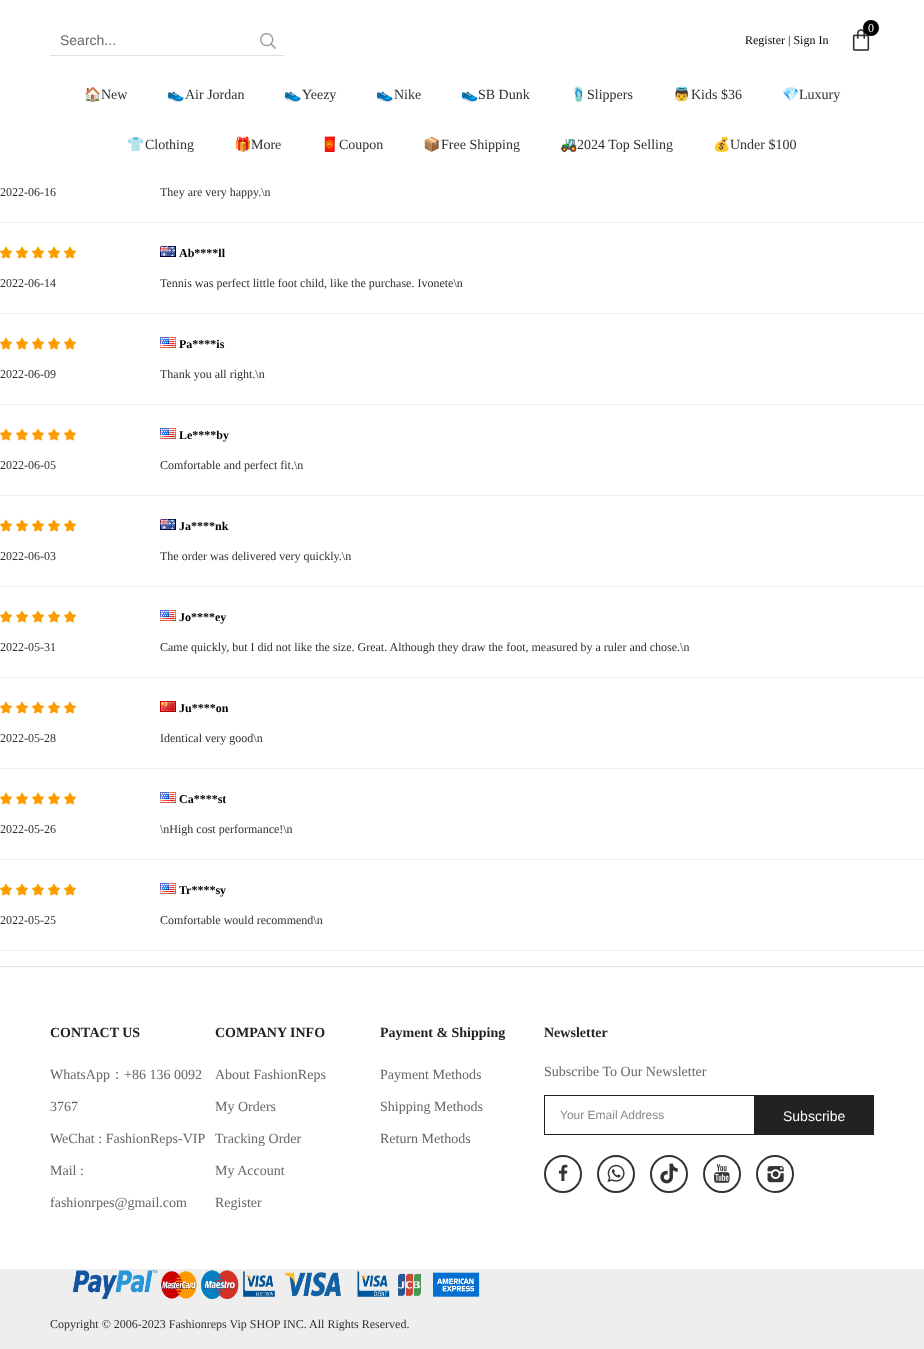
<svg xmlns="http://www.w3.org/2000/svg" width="924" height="1349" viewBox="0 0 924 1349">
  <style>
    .t1 { font: 14px Liberation Sans; fill: #666; }
    .t2 { font: 12px Liberation Serif; fill: #fff; }
    .t3 { font: 12px Liberation Serif; fill: #000; }
    .t4 { font: 14px Noto Color Emoji; fill: #303030; }
    .t5 { font: 14px Liberation Serif; fill: #303030; }
    .t6 { font: 12px Liberation Serif; fill: #303030; }
    .t7 { font: bold 12px Liberation Serif; fill: #000; }
    .t8 { font: bold 14px Liberation Serif; fill: #222; }
    .t9 { font: 14px Liberation Serif; fill: #666; }
    .t10 { font: 500 14px WenQuanYi Zen Hei; fill: #666; }
    .t11 { font: 12px Liberation Sans; fill: #888; }
    .t12 { font: 14px Liberation Sans; fill: #fff; }
  </style>
  <rect width="100%" height="100%" fill="#fff"/>
  <rect x="50" y="55" width="235" height="1" fill="#e0e0e0"/>
  <text x="60" y="45" class="t1">Search...</text>
  <image x="260" y="33" width="16" height="16" href="images/1.png"/>
  <image x="852" y="29" width="18" height="22" href="images/2.png"/>
  <circle cx="871" cy="28" r="8" fill="#000"/>
  <text x="868" y="32" class="t2">0</text>
  <text x="745" y="44" class="t3">Register | Sign In</text>
  <text x="84" y="99" class="t4">🏠</text>
  <text x="101" y="99" class="t5">New</text>
  <text x="167" y="99" class="t4">👟</text>
  <text x="185" y="99" class="t5">Air Jordan</text>
  <text x="284" y="99" class="t4">👟</text>
  <text x="302" y="99" class="t5">Yeezy</text>
  <text x="376" y="99" class="t4">👟</text>
  <text x="394" y="99" class="t5">Nike</text>
  <text x="461" y="99" class="t4">👟</text>
  <text x="478" y="99" class="t5">SB Dunk</text>
  <text x="570" y="99" class="t4">🩴</text>
  <text x="587" y="99" class="t5">Slippers</text>
  <text x="673" y="99" class="t4">👼</text>
  <text x="691" y="99" class="t5">Kids $36</text>
  <text x="782" y="99" class="t4">💎</text>
  <text x="799" y="99" class="t5">Luxury</text>
  <text x="127" y="149" class="t4">👕</text>
  <text x="145" y="149" class="t5">Clothing</text>
  <text x="234" y="149" class="t4">🎁</text>
  <text x="251" y="149" class="t5">More</text>
  <text x="321" y="149" class="t4">🧧</text>
  <text x="339" y="149" class="t5">Coupon</text>
  <text x="423" y="149" class="t4">📦</text>
  <text x="441" y="149" class="t5">Free Shipping</text>
  <text x="560" y="149" class="t4">🚜</text>
  <text x="577" y="149" class="t5">2024 Top Selling</text>
  <text x="713" y="149" class="t4">💰</text>
  <text x="730" y="149" class="t5">Under $100</text>
  <rect x="0" y="222" width="924" height="1" fill="#eee"/>
  <text x="0" y="196" class="t6">2022-06-16</text>
  <text x="160" y="196" class="t6">They are very happy.\n</text>
  <rect x="0" y="313" width="924" height="1" fill="#eee"/>
  <image x="0" y="246" width="12" height="13" href="images/3.png"/>
  <image x="16" y="246" width="12" height="13" href="images/3.png"/>
  <image x="32" y="246" width="12" height="13" href="images/3.png"/>
  <image x="48" y="246" width="12" height="13" href="images/3.png"/>
  <image x="64" y="246" width="12" height="13" href="images/3.png"/>
  <text x="0" y="287" class="t6">2022-06-14</text>
  <image x="160" y="246" width="16" height="11" href="images/4.png"/>
  <text x="179" y="257" class="t7">Ab****ll</text>
  <text x="160" y="287" class="t6">Tennis was perfect little foot child, like the purchase. Ivonete\n</text>
  <rect x="0" y="404" width="924" height="1" fill="#eee"/>
  <image x="0" y="337" width="12" height="13" href="images/3.png"/>
  <image x="16" y="337" width="12" height="13" href="images/3.png"/>
  <image x="32" y="337" width="12" height="13" href="images/3.png"/>
  <image x="48" y="337" width="12" height="13" href="images/3.png"/>
  <image x="64" y="337" width="12" height="13" href="images/3.png"/>
  <text x="0" y="378" class="t6">2022-06-09</text>
  <image x="160" y="337" width="16" height="11" href="images/5.png"/>
  <text x="179" y="348" class="t7">Pa****is</text>
  <text x="160" y="378" class="t6">Thank you all right.\n</text>
  <rect x="0" y="495" width="924" height="1" fill="#eee"/>
  <image x="0" y="428" width="12" height="13" href="images/3.png"/>
  <image x="16" y="428" width="12" height="13" href="images/3.png"/>
  <image x="32" y="428" width="12" height="13" href="images/3.png"/>
  <image x="48" y="428" width="12" height="13" href="images/3.png"/>
  <image x="64" y="428" width="12" height="13" href="images/3.png"/>
  <text x="0" y="469" class="t6">2022-06-05</text>
  <image x="160" y="428" width="16" height="11" href="images/5.png"/>
  <text x="179" y="439" class="t7">Le****by</text>
  <text x="160" y="469" class="t6">Comfortable and perfect fit.\n</text>
  <rect x="0" y="586" width="924" height="1" fill="#eee"/>
  <image x="0" y="519" width="12" height="13" href="images/3.png"/>
  <image x="16" y="519" width="12" height="13" href="images/3.png"/>
  <image x="32" y="519" width="12" height="13" href="images/3.png"/>
  <image x="48" y="519" width="12" height="13" href="images/3.png"/>
  <image x="64" y="519" width="12" height="13" href="images/3.png"/>
  <text x="0" y="560" class="t6">2022-06-03</text>
  <image x="160" y="519" width="16" height="11" href="images/4.png"/>
  <text x="179" y="530" class="t7">Ja****nk</text>
  <text x="160" y="560" class="t6">The order was delivered very quickly.\n</text>
  <rect x="0" y="677" width="924" height="1" fill="#eee"/>
  <image x="0" y="610" width="12" height="13" href="images/3.png"/>
  <image x="16" y="610" width="12" height="13" href="images/3.png"/>
  <image x="32" y="610" width="12" height="13" href="images/3.png"/>
  <image x="48" y="610" width="12" height="13" href="images/3.png"/>
  <image x="64" y="610" width="12" height="13" href="images/3.png"/>
  <text x="0" y="651" class="t6">2022-05-31</text>
  <image x="160" y="610" width="16" height="11" href="images/5.png"/>
  <text x="179" y="621" class="t7">Jo****ey</text>
  <text x="160" y="651" class="t6">Came quickly, but I did not like the size. Great. Although they draw the foot, measured by a ruler and chose.\n</text>
  <rect x="0" y="768" width="924" height="1" fill="#eee"/>
  <image x="0" y="701" width="12" height="13" href="images/3.png"/>
  <image x="16" y="701" width="12" height="13" href="images/3.png"/>
  <image x="32" y="701" width="12" height="13" href="images/3.png"/>
  <image x="48" y="701" width="12" height="13" href="images/3.png"/>
  <image x="64" y="701" width="12" height="13" href="images/3.png"/>
  <text x="0" y="742" class="t6">2022-05-28</text>
  <image x="160" y="701" width="16" height="11" href="images/6.png"/>
  <text x="179" y="712" class="t7">Ju****on</text>
  <text x="160" y="742" class="t6">Identical very good\n</text>
  <rect x="0" y="859" width="924" height="1" fill="#eee"/>
  <image x="0" y="792" width="12" height="13" href="images/3.png"/>
  <image x="16" y="792" width="12" height="13" href="images/3.png"/>
  <image x="32" y="792" width="12" height="13" href="images/3.png"/>
  <image x="48" y="792" width="12" height="13" href="images/3.png"/>
  <image x="64" y="792" width="12" height="13" href="images/3.png"/>
  <text x="0" y="833" class="t6">2022-05-26</text>
  <image x="160" y="792" width="16" height="11" href="images/5.png"/>
  <text x="179" y="803" class="t7">Ca****st</text>
  <text x="160" y="833" class="t6">\nHigh cost performance!\n</text>
  <rect x="0" y="950" width="924" height="1" fill="#eee"/>
  <image x="0" y="883" width="12" height="13" href="images/3.png"/>
  <image x="16" y="883" width="12" height="13" href="images/3.png"/>
  <image x="32" y="883" width="12" height="13" href="images/3.png"/>
  <image x="48" y="883" width="12" height="13" href="images/3.png"/>
  <image x="64" y="883" width="12" height="13" href="images/3.png"/>
  <text x="0" y="924" class="t6">2022-05-25</text>
  <image x="160" y="883" width="16" height="11" href="images/5.png"/>
  <text x="179" y="894" class="t7">Tr****sy</text>
  <text x="160" y="924" class="t6">Comfortable would recommend\n</text>
  <rect x="0" y="966" width="924" height="1" fill="#e1e1e1"/>
  <text x="50" y="1037" class="t8">CONTACT US</text>
  <text x="50" y="1079" class="t9">WhatsApp</text>
  <text x="110" y="1079" class="t10">：</text>
  <text x="124" y="1079" class="t9">+86 136 0092</text>
  <text x="50" y="1111" class="t9">3767</text>
  <text x="50" y="1143" class="t9">WeChat : FashionReps-VIP</text>
  <text x="50" y="1175" class="t9">Mail :</text>
  <text x="50" y="1207" class="t9">fashionrpes@gmail.com</text>
  <text x="215" y="1037" class="t8">COMPANY INFO</text>
  <text x="215" y="1079" class="t9">About FashionReps</text>
  <text x="215" y="1111" class="t9">My Orders</text>
  <text x="215" y="1143" class="t9">Tracking Order</text>
  <text x="215" y="1175" class="t9">My Account</text>
  <text x="215" y="1207" class="t9">Register</text>
  <text x="380" y="1037" class="t8">Payment &amp; Shipping</text>
  <text x="380" y="1079" class="t9">Payment Methods</text>
  <text x="380" y="1111" class="t9">Shipping Methods</text>
  <text x="380" y="1143" class="t9">Return Methods</text>
  <text x="544" y="1037" class="t8">Newsletter</text>
  <text x="544" y="1076" class="t9">Subscribe To Our Newsletter</text>
  <rect x="544" y="1095" width="210" height="1" fill="#222"/>
  <rect x="544" y="1134" width="210" height="1" fill="#222"/>
  <rect x="544" y="1095" width="1" height="40" fill="#222"/>
  <text x="560" y="1119" class="t11">Your Email Address</text>
  <rect x="754" y="1095" width="120" height="40" fill="#222"/>
  <text x="783" y="1121" class="t12">Subscribe</text>
  <circle cx="563" cy="1174" r="18" fill="none" stroke="#333" stroke-width="2"/>
  <image x="558" y="1164" width="10" height="17" href="images/7.png"/>
  <circle cx="616" cy="1174" r="18" fill="none" stroke="#333" stroke-width="2"/>
  <image x="607" y="1164" width="18" height="19" href="images/8.png"/>
  <circle cx="669" cy="1174" r="18" fill="none" stroke="#333" stroke-width="2"/>
  <image x="660" y="1163" width="18" height="21" href="images/9.png"/>
  <circle cx="722" cy="1174" r="18" fill="none" stroke="#333" stroke-width="2"/>
  <image x="714" y="1164" width="16" height="19" href="images/10.png"/>
  <circle cx="775" cy="1174" r="18" fill="none" stroke="#333" stroke-width="2"/>
  <image x="767" y="1166" width="17" height="17" href="images/11.png"/>
  <rect x="0" y="1269" width="924" height="80" fill="#eee"/>
  <image x="72" y="1270" width="408" height="29" href="images/12.png"/>
  <text x="50" y="1328" class="t6">Copyright © 2006-2023 Fashionreps Vip SHOP INC. All Rights Reserved.</text>
</svg>
